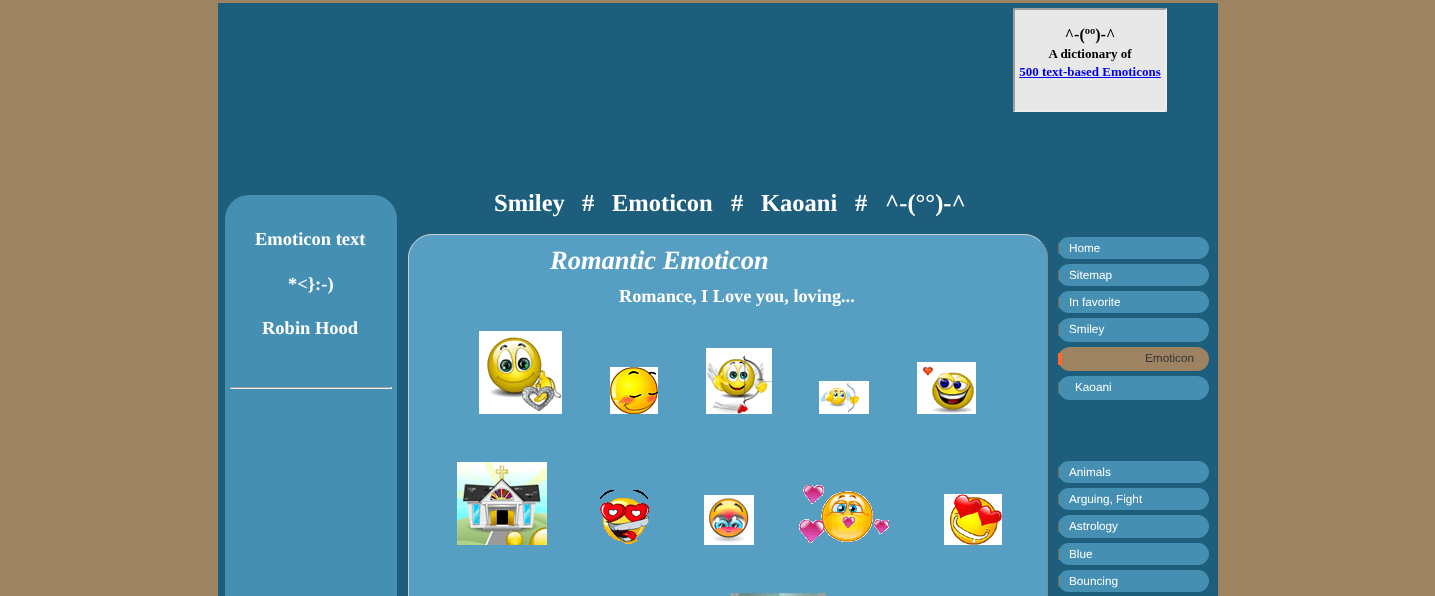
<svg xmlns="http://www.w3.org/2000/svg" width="1435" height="596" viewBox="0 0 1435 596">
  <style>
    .t1 { font: bold 18.5px Liberation Serif; fill: #fff; }
    .t2 { font: bold 24.5px Liberation Serif; fill: #fff; }
    .t3 { font: italic bold 26.5px Liberation Serif; fill: #fff; }
    .t4 { font: bold 18.25px Liberation Serif; fill: #fff; }
    .t5 { font: 11.75px Liberation Sans; fill: #fff; }
    .t6 { font: 11.75px Liberation Sans; fill: #333; }
  </style>
  <rect width="100%" height="100%" fill="#9e8363"/>
  <rect x="218" y="3" width="1000" height="593" fill="#1d5e7d"/>
  <path d="M1013 8H1167L1165 10H1015Z" fill="#9f9f9f"/>
  <path d="M1167 8V112L1165 110V10Z" fill="#eee"/>
  <path d="M1167 112H1013L1015 110H1165Z" fill="#eee"/>
  <path d="M1013 112V8L1015 10V110Z" fill="#9f9f9f"/>
  <image x="1015" y="10" width="150" height="100" href="images/1.png"/>
  <rect x="225" y="195" width="172" height="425" rx="24" fill="#458fb2"/>
  <text x="255" y="245" class="t1">Emoticon text</text>
  <text x="288" y="290" class="t1">*&lt;}:-)</text>
  <text x="262" y="334" class="t1">Robin Hood</text>
  <rect x="230" y="387" width="162" height="1" fill="#9f9f9f"/>
  <rect x="391" y="387" width="1" height="2" fill="#eee"/>
  <rect x="230" y="388" width="162" height="1" fill="#eee"/>
  <rect x="230" y="387" width="1" height="2" fill="#9f9f9f"/>
  <text x="494" y="211" class="t2">Smiley</text>
  <text x="582" y="211" class="t2">#</text>
  <text x="612" y="211" class="t2">Emoticon</text>
  <text x="731" y="211" class="t2">#</text>
  <text x="761" y="211" class="t2">Kaoani</text>
  <text x="855" y="211" class="t2">#</text>
  <text x="885" y="211" class="t2">^-(°°)-^</text>
  <rect x="408" y="234" width="640" height="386" rx="24" fill="#579fc2"/>
  <path d="M1040.5 241.5C1045 246 1047.5 252 1047.5 258V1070C1047.5 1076 1045 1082 1040.5 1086.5C1036 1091 1030 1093.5 1024 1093.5H432C426 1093.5 420 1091 415.5 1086.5" fill="none" stroke="#888"/>
  <path d="M415.5 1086.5C411 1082 408.5 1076 408.5 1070V258C408.5 252 411 246 415.5 241.5C420 237 426 234.5 432 234.5H1024C1030 234.5 1036 237 1040.5 241.5" fill="none" stroke="#ccc"/>
  <text x="550" y="269" class="t3">Romantic Emoticon</text>
  <text x="619" y="302" class="t4">Romance, I Love you, loving...</text>
  <image x="479" y="331" width="83" height="83" href="images/2.png"/>
  <image x="610" y="367" width="48" height="47" href="images/3.png"/>
  <image x="706" y="348" width="66" height="66" href="images/4.png"/>
  <image x="819" y="381" width="50" height="33" href="images/5.png"/>
  <image x="917" y="362" width="59" height="52" href="images/6.png"/>
  <image x="457" y="462" width="90" height="83" href="images/7.png"/>
  <image x="600" y="490" width="49" height="54" href="images/8.png"/>
  <image x="704" y="495" width="50" height="50" href="images/9.png"/>
  <image x="799" y="485" width="90" height="58" href="images/10.png"/>
  <image x="944" y="494" width="58" height="51" href="images/11.png"/>
  <image x="730" y="593" width="96" height="3" href="images/12.png"/>
  <rect x="1058" y="237" width="151" height="22" rx="11" fill="#458fb2"/>
  <rect x="1058" y="243" width="1" height="11" fill="#846837"/>
  <text x="1069" y="252" class="t5">Home</text>
  <rect x="1058" y="264" width="151" height="22" rx="11" fill="#458fb2"/>
  <rect x="1058" y="270" width="1" height="11" fill="#846837"/>
  <text x="1069" y="279" class="t5">Sitemap</text>
  <rect x="1058" y="291" width="151" height="22" rx="11" fill="#458fb2"/>
  <rect x="1058" y="297" width="1" height="11" fill="#846837"/>
  <text x="1069" y="306" class="t5">In favorite</text>
  <rect x="1058" y="318" width="151" height="24" rx="12" fill="#458fb2"/>
  <rect x="1058" y="324" width="1" height="12" fill="#846837"/>
  <text x="1069" y="333" class="t5">Smiley</text>
  <rect x="1058" y="347" width="151" height="24" rx="12" fill="#9e8363"/>
  <rect x="1058" y="353" width="4" height="12" fill="#ff6732"/>
  <text x="1145" y="362" class="t6">Emoticon</text>
  <rect x="1058" y="376" width="151" height="24" rx="12" fill="#458fb2"/>
  <rect x="1058" y="382" width="1" height="12" fill="#846837"/>
  <text x="1075" y="391" class="t5">Kaoani</text>
  <rect x="1058" y="461" width="151" height="22" rx="11" fill="#458fb2"/>
  <rect x="1058" y="467" width="1" height="11" fill="#846837"/>
  <text x="1069" y="476" class="t5">Animals</text>
  <rect x="1058" y="488" width="151" height="22" rx="11" fill="#458fb2"/>
  <rect x="1058" y="494" width="1" height="11" fill="#846837"/>
  <text x="1069" y="503" class="t5">Arguing, Fight</text>
  <rect x="1058" y="515" width="151" height="23" rx="11.5" fill="#458fb2"/>
  <rect x="1058" y="521" width="1" height="11" fill="#846837"/>
  <text x="1069" y="530" class="t5">Astrology</text>
  <rect x="1058" y="543" width="151" height="22" rx="11" fill="#458fb2"/>
  <rect x="1058" y="549" width="1" height="11" fill="#846837"/>
  <text x="1069" y="558" class="t5">Blue</text>
  <rect x="1058" y="570" width="151" height="22" rx="11" fill="#458fb2"/>
  <rect x="1058" y="576" width="1" height="11" fill="#846837"/>
  <text x="1069" y="585" class="t5">Bouncing</text>
</svg>
